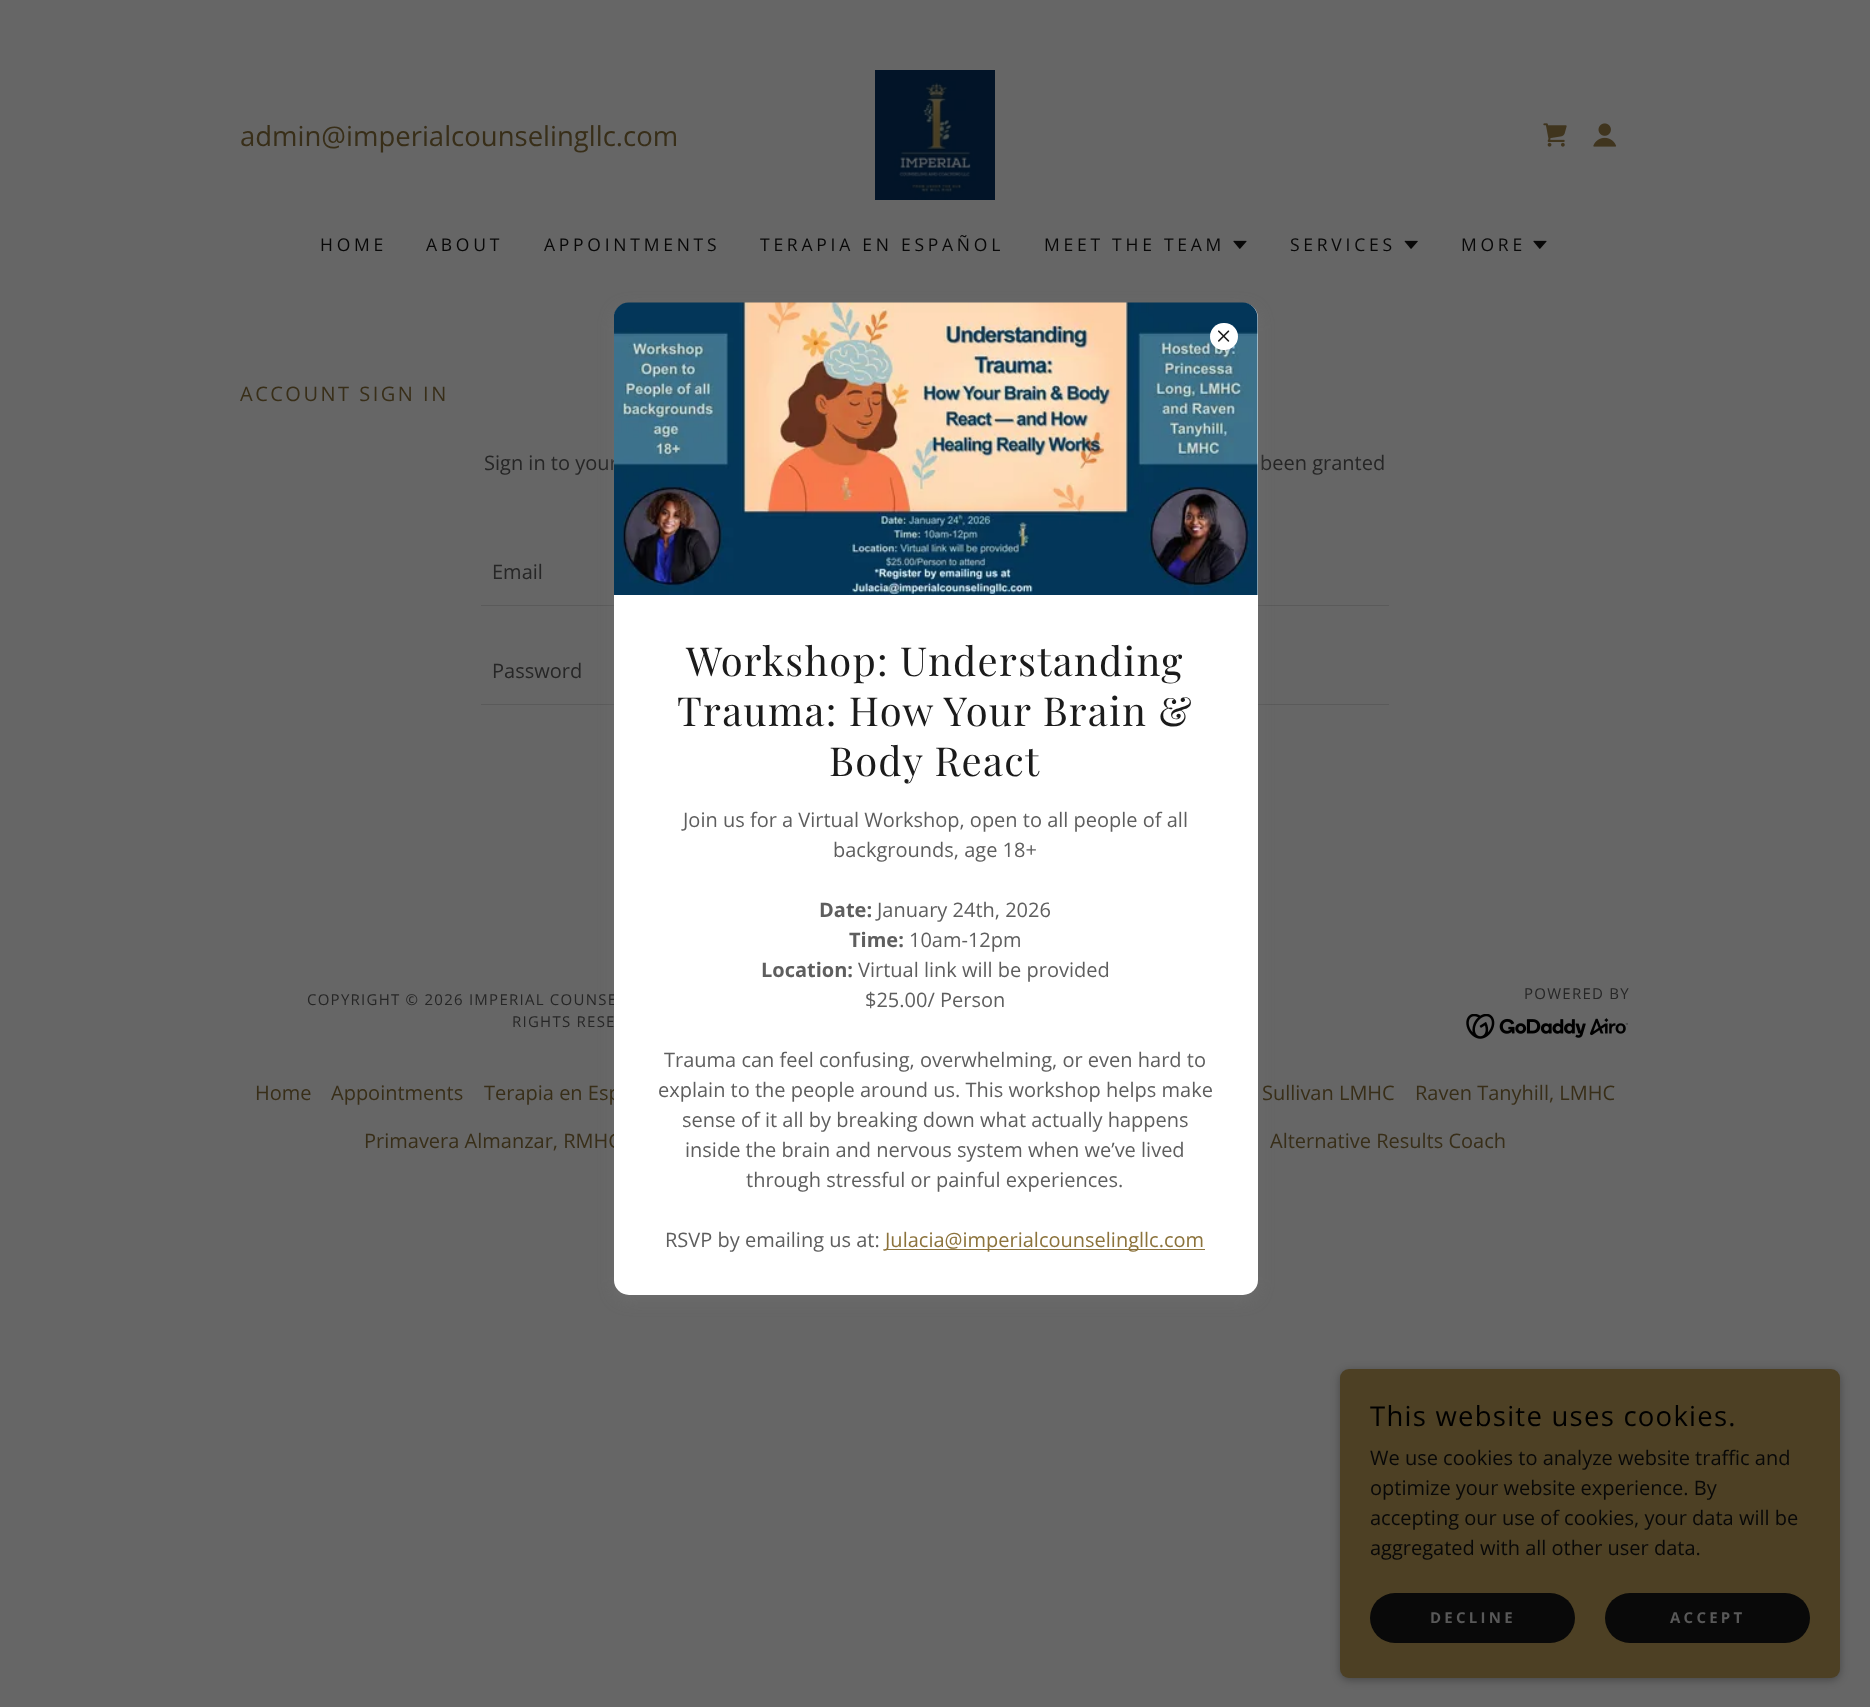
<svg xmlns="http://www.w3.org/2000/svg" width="1870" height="1707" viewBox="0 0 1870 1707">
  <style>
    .t1 { font: 27.5px Open Sans; fill: #382e18; }
    .t2 { font: 17.5px Open Sans; letter-spacing: 3.75px; fill: #080808; }
    .t3 { font: 20px Open Sans; letter-spacing: 2.5px; fill: #382e18; }
    .t4 { font: 20px Open Sans; fill: #262626; }
    .t5 { font: 15px Open Sans; letter-spacing: 1.25px; fill: #262626; }
    .t6 { font: 20px Open Sans; fill: #382e18; }
    .t7 { font: 40px Playfair Display; letter-spacing: 1.25px; fill: #1b1b1b; }
    .t8 { font: 20px Open Sans; fill: #5e5e5e; }
    .t9 { font: bold 20px Open Sans; fill: #5e5e5e; }
    .t10 { font: 20px Open Sans; fill: #8c733c; }
    .t11 { font: 27.5px Open Sans; letter-spacing: 1.25px; fill: #000; }
    .t12 { font: 20px Open Sans; fill: #080808; }
    .t13 { font: bold 15px Open Sans; letter-spacing: 3.25px; fill: #585858; }
  </style>
  <rect width="100%" height="100%" fill="#666"/>
  <text x="240" y="146" class="t1">admin@imperialcounselingllc.com</text>
  <image x="875" y="70" width="120" height="130" href="images/1.png"/>
  <image x="1543" y="123" width="24" height="24" href="images/2.png"/>
  <image x="1593" y="123" width="24" height="24" href="images/3.png"/>
  <text x="320" y="251" class="t2">HOME</text>
  <text x="426" y="251" class="t2">ABOUT</text>
  <text x="544" y="251" class="t2">APPOINTMENTS</text>
  <text x="760" y="251" class="t2">TERAPIA EN ESPAÑOL</text>
  <text x="1044" y="251" class="t2">MEET THE TEAM</text>
  <image x="1233" y="240" width="14" height="9" href="images/4.png"/>
  <text x="1290" y="251" class="t2">SERVICES</text>
  <image x="1404" y="240" width="14" height="9" href="images/5.png"/>
  <text x="1461" y="251" class="t2">MORE</text>
  <image x="1533" y="240" width="14" height="9" href="images/4.png"/>
  <text x="240" y="401" class="t3">ACCOUNT SIGN IN</text>
  <text x="484" y="470" class="t4">Sign in to your</text>
  <text x="1260" y="470" class="t4">been granted</text>
  <rect x="481" y="605" width="908" height="1" fill="#5a5a5a"/>
  <text x="492" y="579" class="t4">Email</text>
  <rect x="481" y="704" width="908" height="1" fill="#5a5a5a"/>
  <text x="492" y="678" class="t4">Password</text>
  <rect x="614" y="308" width="644" height="992" rx="15" fill="#75757566" filter="blur(7.5px)"/>
  <text x="307" y="1005" class="t5">COPYRIGHT © 2026 IMPERIAL COUNSE</text>
  <text x="484" y="1100" class="t6">Terapia en Esp</text>
  <text x="364" y="1148" class="t6">Primavera Almanzar, RMHC</text>
  <rect x="614" y="303" width="644" height="992" rx="15" fill="#fff"/>
  <image x="614" y="302" width="644" height="293" href="images/7.png"/>
  <rect x="1210" y="323" width="28" height="27" rx="13.5" fill="#fff"/>
  <image x="1218" y="330" width="12" height="12" href="images/6.png"/>
  <text x="686" y="676" class="t7">Workshop: Understanding</text>
  <text x="677" y="726" class="t7">Trauma: How Your Brain &amp;</text>
  <text x="829" y="776" class="t7">Body React</text>
  <text x="683" y="827" class="t8">Join us for a Virtual Workshop, open to all people of all</text>
  <text x="833" y="857" class="t8">backgrounds, age 18+</text>
  <text x="819" y="917" class="t9">Date:</text>
  <text x="877" y="917" class="t8">January 24th, 2026</text>
  <text x="849" y="947" class="t9">Time:</text>
  <text x="909" y="947" class="t8">10am-12pm</text>
  <text x="761" y="977" class="t9">Location:</text>
  <text x="858" y="977" class="t8">Virtual link will be provided</text>
  <text x="865" y="1007" class="t8">$25.00/ Person</text>
  <text x="664" y="1067" class="t8">Trauma can feel confusing, overwhelming, or even hard to</text>
  <text x="658" y="1097" class="t8">explain to the people around us. This workshop helps make</text>
  <text x="682" y="1127" class="t8">sense of it all by breaking down what actually happens</text>
  <text x="685" y="1157" class="t8">inside the brain and nervous system when we’ve lived</text>
  <text x="746" y="1187" class="t8">through stressful or painful experiences.</text>
  <text x="665" y="1247" class="t8">RSVP by emailing us at:</text>
  <rect x="885" y="1249" width="320" height="1" fill="#8c733c"/>
  <text x="885" y="1247" class="t10">Julacia@imperialcounselingllc.com</text>
  <text x="512" y="1027" class="t5">RIGHTS RESE</text>
  <text x="1524" y="999" class="t5">POWERED BY</text>
  <image x="1466" y="1014" width="162" height="25" href="images/8.png"/>
  <text x="255" y="1100" class="t6">Home</text>
  <text x="331" y="1100" class="t6">Appointments</text>
  <text x="1262" y="1100" class="t6">Sullivan LMHC</text>
  <text x="1415" y="1100" class="t6">Raven Tanyhill, LMHC</text>
  <text x="1270" y="1148" class="t6">Alternative Results Coach</text>
  <rect x="1340" y="1371" width="500" height="309" rx="9" fill="#0000004d" filter="blur(4px)"/>
  <rect x="1340" y="1369" width="500" height="309" rx="9" fill="#4d4024"/>
  <text x="1370" y="1426" class="t11">This website uses cookies.</text>
  <text x="1370" y="1465" class="t12">We use cookies to analyze website traffic and</text>
  <text x="1370" y="1495" class="t12">optimize your website experience. By</text>
  <text x="1370" y="1525" class="t12">accepting our use of cookies, your data will be</text>
  <text x="1370" y="1555" class="t12">aggregated with all other user data.</text>
  <rect x="1370" y="1593" width="205" height="50" rx="25" fill="#090909"/>
  <text x="1430" y="1623" class="t13">DECLINE</text>
  <rect x="1605" y="1593" width="205" height="50" rx="25" fill="#090909"/>
  <text x="1670" y="1623" class="t13">ACCEPT</text>
</svg>
